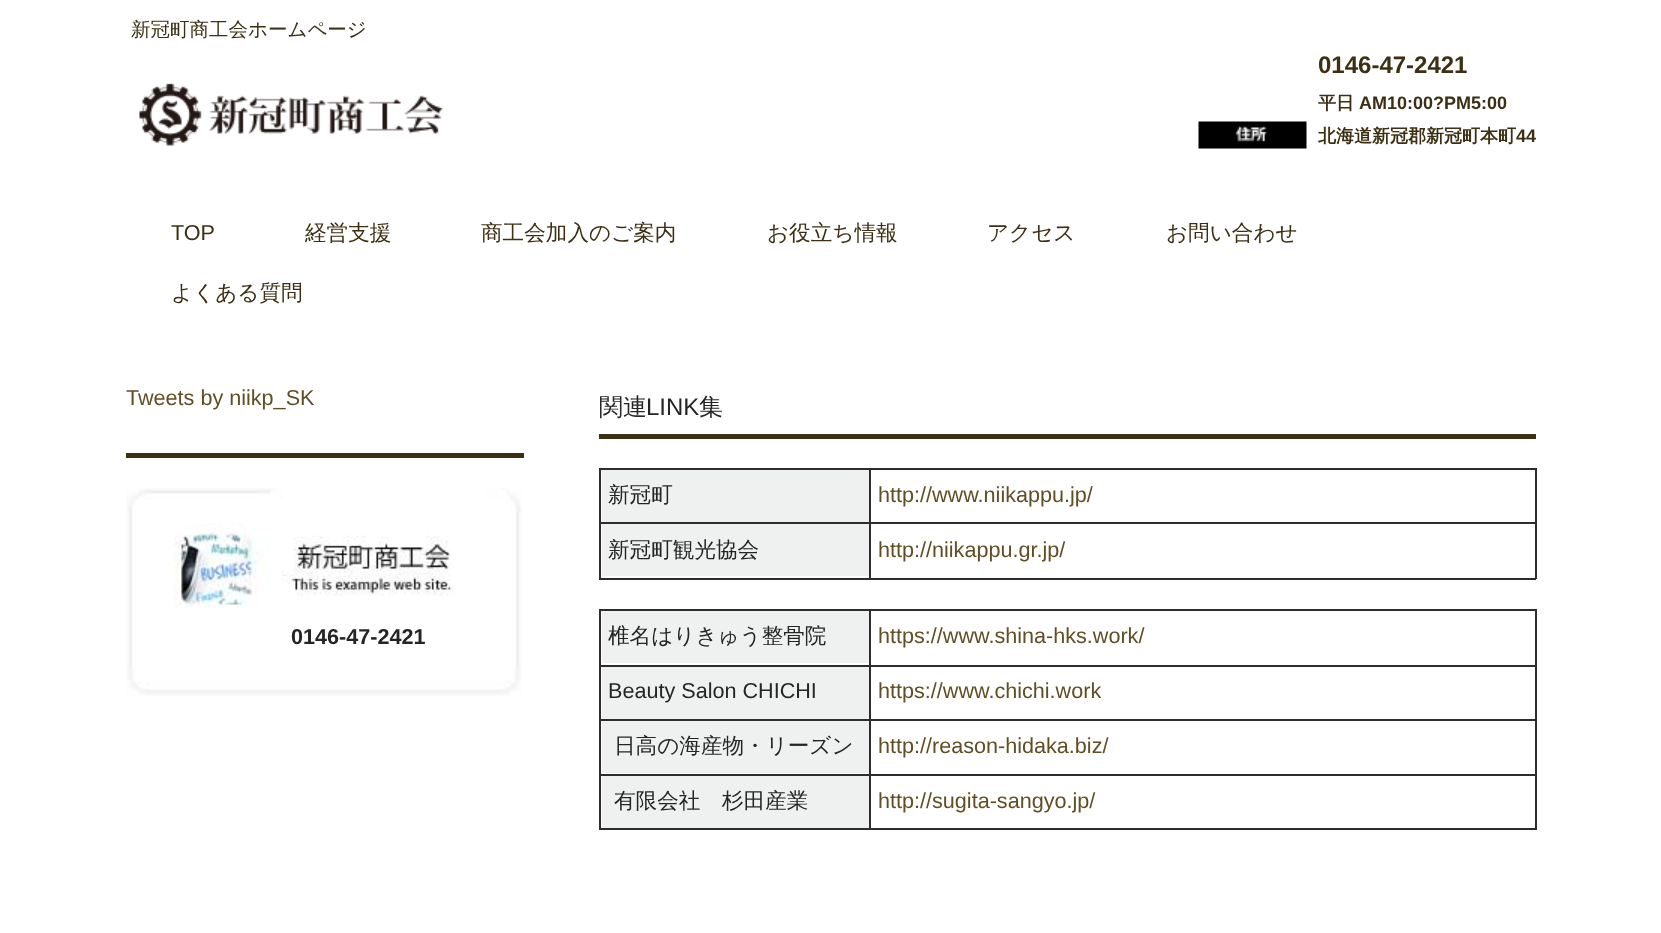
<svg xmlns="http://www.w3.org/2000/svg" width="1661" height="933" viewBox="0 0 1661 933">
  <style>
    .t1 { font: 500 19.5px WenQuanYi Zen Hei; fill: #3c2f13; }
    .t2 { font: bold 24px Liberation Sans; fill: #3c2f13; }
    .t3 { font: bold 18px WenQuanYi Zen Hei; fill: #3c2f13; }
    .t4 { font: bold 18px Liberation Sans; fill: #3c2f13; }
    .t5 { font: 21.6px Liberation Sans; fill: #3c2f13; }
    .t6 { font: 500 21.6px WenQuanYi Zen Hei; fill: #3c2f13; }
    .t7 { font: 21.6px Liberation Sans; fill: #624e24; }
    .t8 { font: bold 21.6px Liberation Sans; fill: #252525; }
    .t9 { font: 500 24px WenQuanYi Zen Hei; fill: #252525; }
    .t10 { font: 24px Liberation Sans; fill: #252525; }
    .t11 { font: 500 21.6px WenQuanYi Zen Hei; fill: #252525; }
    .t12 { font: 21.6px Liberation Sans; fill: #252525; }
  </style>
  <rect width="100%" height="100%" fill="#fff"/>
  <text x="131" y="36" class="t1">新冠町商工会ホームページ</text>
  <image x="139" y="83" width="304" height="63" href="images/1.png"/>
  <text x="1318" y="73" class="t2">0146-47-2421</text>
  <text x="1318" y="109" class="t3">平日</text>
  <text x="1359" y="109" class="t4">AM10:00?PM5:00</text>
  <image x="1198" y="121" width="109" height="28" href="images/2.png"/>
  <text x="1318" y="142" class="t3">北海道新冠郡新冠町本町</text>
  <text x="1516" y="142" class="t4">44</text>
  <text x="171" y="240" class="t5">TOP</text>
  <text x="305" y="240" class="t6">経営支援</text>
  <text x="481" y="240" class="t6">商工会加入のご案内</text>
  <text x="767" y="240" class="t6">お役立ち情報</text>
  <text x="987" y="240" class="t6">アクセス</text>
  <text x="1166" y="240" class="t6">お問い合わせ</text>
  <text x="171" y="300" class="t6">よくある質問</text>
  <text x="126" y="405" class="t7">Tweets by niikp_SK</text>
  <rect x="126" y="453" width="398" height="5" fill="#3c2f13"/>
  <image x="126" y="488" width="396" height="208" href="images/3.png"/>
  <text x="291" y="644" class="t8">0146-47-2421</text>
  <rect x="599" y="434" width="937" height="5" fill="#3c2f13"/>
  <text x="599" y="415" class="t9">関連</text>
  <text x="646" y="415" class="t10">LINK</text>
  <text x="699" y="415" class="t9">集</text>
  <rect x="599" y="468" width="937" height="2" fill="#2e2c2c"/>
  <rect x="1535" y="468" width="2" height="111" fill="#2e2c2c"/>
  <rect x="599" y="578" width="937" height="2" fill="#2e2c2c"/>
  <rect x="599" y="468" width="2" height="111" fill="#2e2c2c"/>
  <rect x="602" y="470" width="267" height="52" fill="#eff1f0"/>
  <rect x="869" y="522" width="2" height="57" fill="#2e2c2c"/>
  <rect x="869" y="522" width="667" height="2" fill="#2e2c2c"/>
  <rect x="869" y="468" width="2" height="56" fill="#2e2c2c"/>
  <rect x="599" y="522" width="271" height="2" fill="#2e2c2c"/>
  <text x="608" y="502" class="t11">新冠町</text>
  <text x="878" y="502" class="t7">http://www.niikappu.jp/</text>
  <rect x="602" y="524" width="267" height="52" fill="#eff1f0"/>
  <text x="608" y="557" class="t11">新冠町観光協会</text>
  <text x="878" y="557" class="t7">http://niikappu.gr.jp/</text>
  <rect x="599" y="609" width="937" height="2" fill="#2e2c2c"/>
  <rect x="1535" y="609" width="2" height="221" fill="#2e2c2c"/>
  <rect x="599" y="828" width="937" height="2" fill="#2e2c2c"/>
  <rect x="599" y="609" width="2" height="221" fill="#2e2c2c"/>
  <rect x="602" y="611" width="267" height="52" fill="#eff1f0"/>
  <rect x="869" y="774" width="2" height="56" fill="#2e2c2c"/>
  <rect x="869" y="774" width="667" height="2" fill="#2e2c2c"/>
  <rect x="869" y="719" width="2" height="57" fill="#2e2c2c"/>
  <rect x="869" y="719" width="667" height="2" fill="#2e2c2c"/>
  <rect x="869" y="665" width="2" height="55" fill="#2e2c2c"/>
  <rect x="869" y="665" width="667" height="2" fill="#2e2c2c"/>
  <rect x="869" y="609" width="2" height="57" fill="#2e2c2c"/>
  <rect x="599" y="665" width="271" height="2" fill="#2e2c2c"/>
  <text x="608" y="643" class="t11">椎名はりきゅう整骨院</text>
  <text x="878" y="643" class="t7">https://www.shina-hks.work/</text>
  <rect x="602" y="667" width="267" height="52" fill="#eff1f0"/>
  <rect x="599" y="719" width="271" height="2" fill="#2e2c2c"/>
  <text x="608" y="698" class="t12">Beauty Salon CHICHI</text>
  <text x="878" y="698" class="t7">https://www.chichi.work</text>
  <rect x="602" y="721" width="267" height="52" fill="#eff1f0"/>
  <rect x="599" y="774" width="271" height="2" fill="#2e2c2c"/>
  <text x="614" y="753" class="t11">日高の海産物・リーズン</text>
  <text x="878" y="753" class="t7">http://reason-hidaka.biz/</text>
  <rect x="602" y="776" width="267" height="52" fill="#eff1f0"/>
  <text x="614" y="808" class="t11">有限会社　杉田産業</text>
  <text x="878" y="808" class="t7">http://sugita-sangyo.jp/</text>
</svg>
